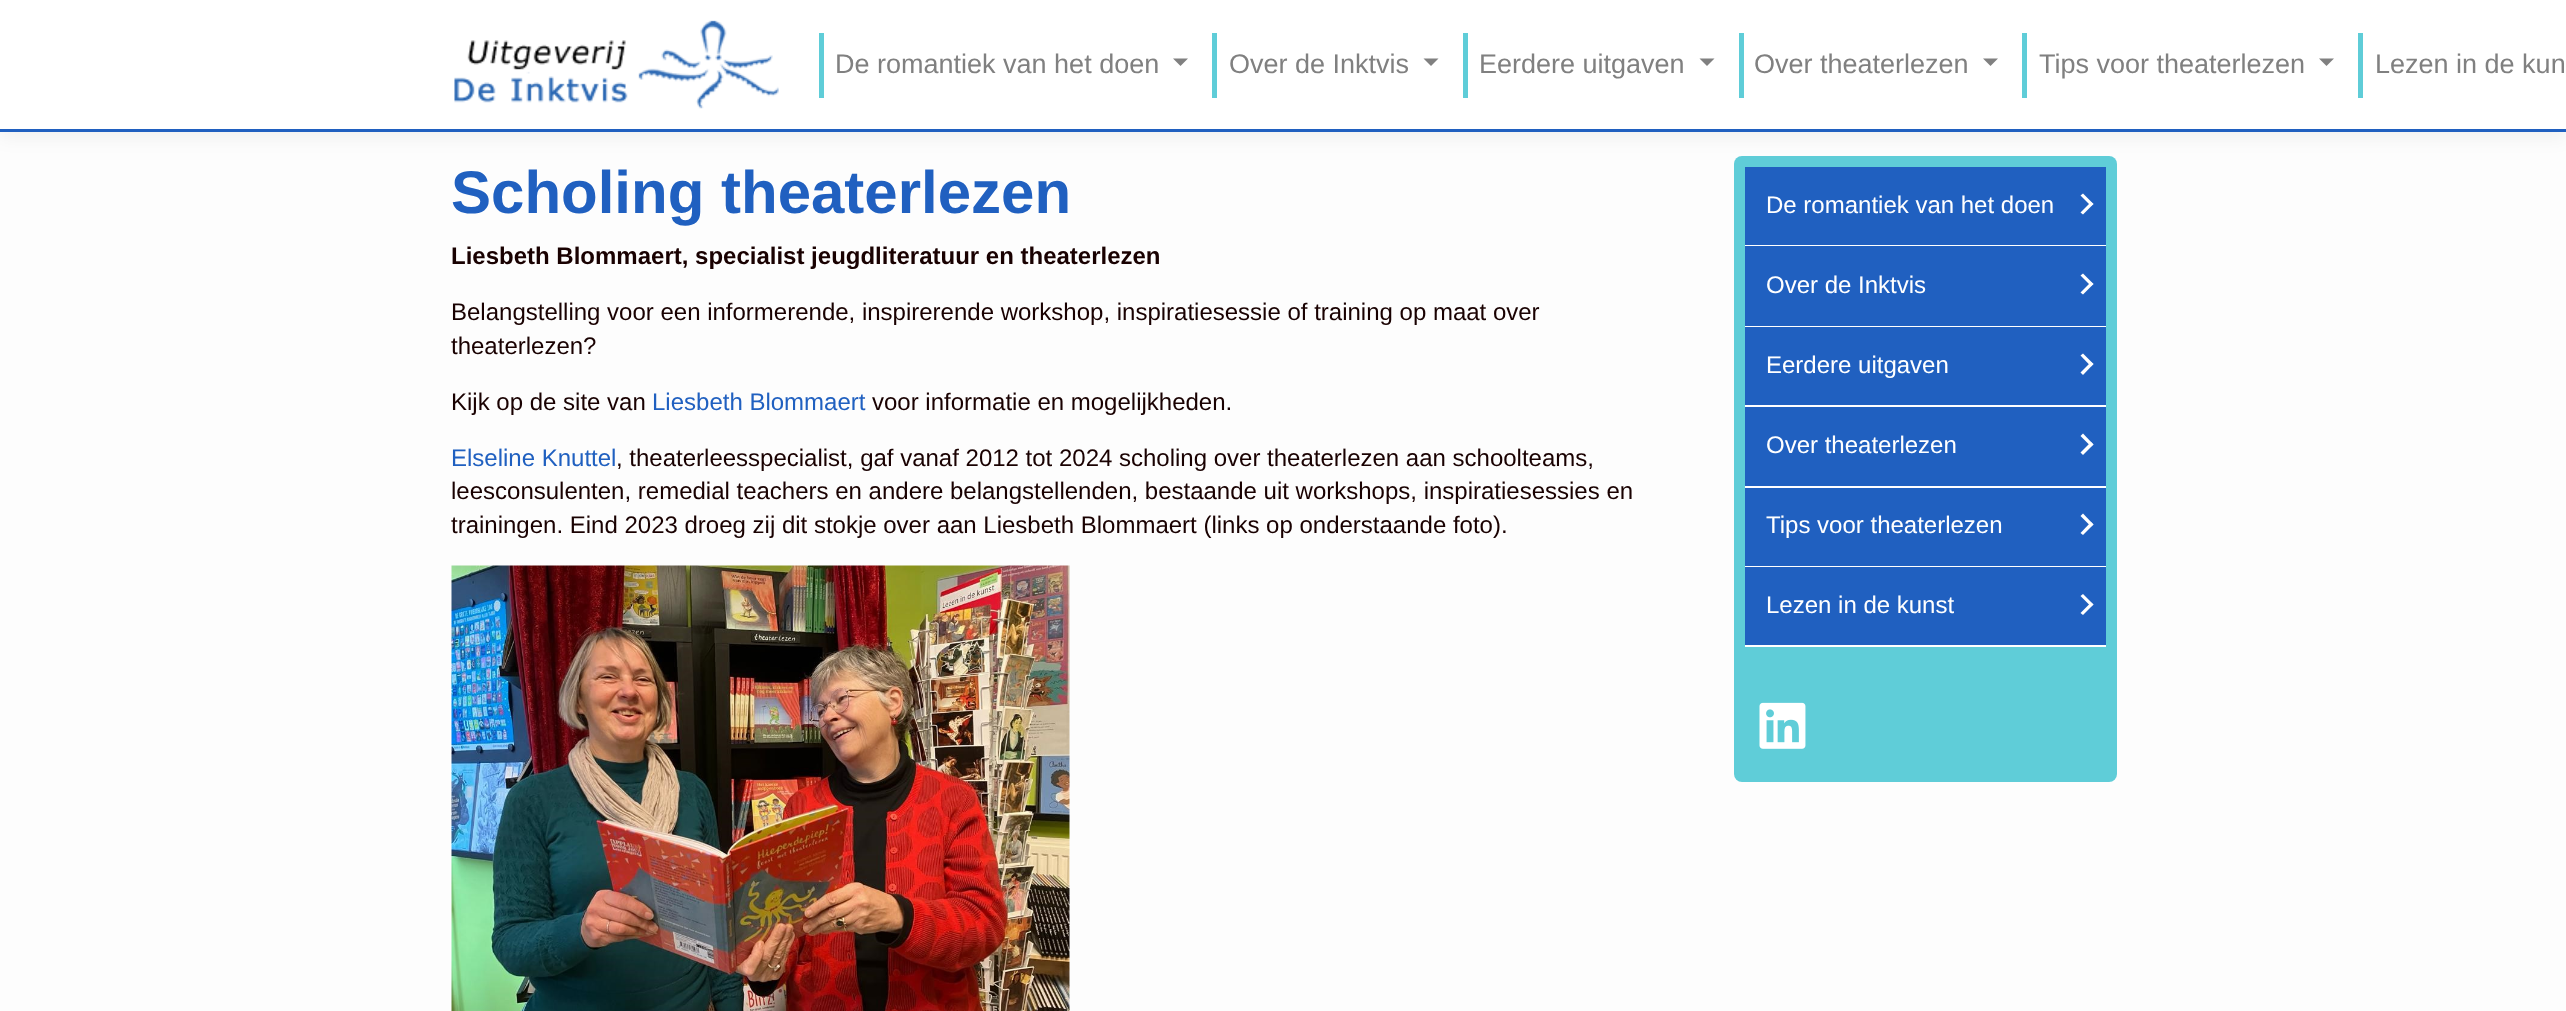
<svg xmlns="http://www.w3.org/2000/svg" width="2566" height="1011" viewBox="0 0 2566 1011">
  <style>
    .t1 { font: 27px Liberation Sans; fill: #808080; }
    .t2 { font: bold 60px Liberation Sans; fill: #2060c0; }
    .t3 { font: bold 24px Liberation Sans; fill: #190101; }
    .t4 { font: 24px Liberation Sans; fill: #190101; }
    .t5 { font: 24px Liberation Sans; fill: #2060c0; }
    .t6 { font: 24px Liberation Sans; fill: #fff; }
  </style>
  <rect width="100%" height="100%" fill="#fdfdfd"/>
  <rect x="0" y="6" width="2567" height="132" fill="#0000000d" filter="blur(9px)"/>
  <rect x="0" y="0" width="2566" height="129" fill="#fff"/>
  <rect x="0" y="129" width="2566" height="3" fill="#2060c0"/>
  <image x="454" y="20" width="325" height="89" href="images/1.png"/>
  <rect x="819" y="33" width="5" height="65" fill="#5fcdd8"/>
  <text x="835" y="73" class="t1">De romantiek van het doen</text>
  <path d="M1173 58.5H1188L1180.5 66Z" fill="#808080"/>
  <rect x="1212" y="33" width="5" height="65" fill="#5fcdd8"/>
  <text x="1229" y="73" class="t1">Over de Inktvis</text>
  <path d="M1423.5 58.5H1438.5L1431 66Z" fill="#808080"/>
  <rect x="1463" y="33" width="5" height="65" fill="#5fcdd8"/>
  <text x="1479" y="73" class="t1">Eerdere uitgaven</text>
  <path d="M1699.5 58.5H1714.5L1707 66Z" fill="#808080"/>
  <rect x="1739" y="33" width="5" height="65" fill="#5fcdd8"/>
  <text x="1754" y="73" class="t1">Over theaterlezen</text>
  <path d="M1983 58.5H1998L1990.5 66Z" fill="#808080"/>
  <rect x="2022" y="33" width="5" height="65" fill="#5fcdd8"/>
  <text x="2039" y="73" class="t1">Tips voor theaterlezen</text>
  <path d="M2319 58.5H2334L2326.5 66Z" fill="#808080"/>
  <rect x="2358" y="33" width="5" height="65" fill="#5fcdd8"/>
  <text x="2375" y="73" class="t1">Lezen in de kun</text>
  <text x="451" y="213" class="t2">Scholing theaterlezen</text>
  <text x="451" y="264" class="t3">Liesbeth Blommaert, specialist jeugdliteratuur en theaterlezen</text>
  <text x="451" y="320" class="t4">Belangstelling voor een informerende, inspirerende workshop, inspiratiesessie of training op maat over</text>
  <text x="451" y="354" class="t4">theaterlezen?</text>
  <text x="451" y="410" class="t4">Kijk op de site van</text>
  <text x="652" y="410" class="t5">Liesbeth Blommaert</text>
  <text x="872" y="410" class="t4">voor informatie en mogelijkheden.</text>
  <text x="451" y="466" class="t5">Elseline Knuttel</text>
  <text x="616" y="466" class="t4">, theaterleesspecialist, gaf vanaf 2012 tot 2024 scholing over theaterlezen aan schoolteams,</text>
  <text x="451" y="499" class="t4">leesconsulenten, remedial teachers en andere belangstellenden, bestaande uit workshops, inspiratiesessies en</text>
  <text x="451" y="533" class="t4">trainingen. Eind 2023 droeg zij dit stokje over aan Liesbeth Blommaert (links op onderstaande foto).</text>
  <image x="451" y="565" width="619" height="446" href="images/2.png"/>
  <rect x="1734" y="156" width="383" height="626" rx="8" fill="#5fcdd8"/>
  <rect x="1745" y="167" width="361" height="78" fill="#2060c0"/>
  <rect x="1745" y="245" width="361" height="1" fill="#fff"/>
  <text x="1766" y="213" class="t6">De romantiek van het doen</text>
  <path d="M2080.5 195.5L2083 193.5L2093.5 204L2091 206Z" fill="#fff"/>
  <path d="M2080.5 212.5L2091 202L2093.5 204L2083 214.5Z" fill="#fff"/>
  <rect x="1745" y="246" width="361" height="80" fill="#2060c0"/>
  <rect x="1745" y="326" width="361" height="1" fill="#fff"/>
  <text x="1766" y="293" class="t6">Over de Inktvis</text>
  <path d="M2080.5 275.5L2083 273.5L2093.5 284L2091 286Z" fill="#fff"/>
  <path d="M2080.5 292.5L2091 282L2093.5 284L2083 294.5Z" fill="#fff"/>
  <rect x="1745" y="327" width="361" height="78" fill="#2060c0"/>
  <rect x="1745" y="405" width="361" height="2" fill="#fff"/>
  <text x="1766" y="373" class="t6">Eerdere uitgaven</text>
  <path d="M2080.5 355.5L2083 353.5L2093.5 364L2091 366.5Z" fill="#fff"/>
  <path d="M2080.5 372.5L2091 362L2093.5 364L2083 375Z" fill="#fff"/>
  <rect x="1745" y="407" width="361" height="79" fill="#2060c0"/>
  <rect x="1745" y="486" width="361" height="2" fill="#fff"/>
  <text x="1766" y="453" class="t6">Over theaterlezen</text>
  <path d="M2080.5 436L2083 433.5L2093.5 444.5L2091 446.5Z" fill="#fff"/>
  <path d="M2080.5 452.5L2091 442L2093.5 444.5L2083 455Z" fill="#fff"/>
  <rect x="1745" y="488" width="361" height="78" fill="#2060c0"/>
  <rect x="1745" y="566" width="361" height="1" fill="#fff"/>
  <text x="1766" y="533" class="t6">Tips voor theaterlezen</text>
  <path d="M2080.5 516L2083 513.5L2093.5 524.5L2091 526.5Z" fill="#fff"/>
  <path d="M2080.5 533L2091 522L2093.5 524.5L2083 535Z" fill="#fff"/>
  <rect x="1745" y="567" width="361" height="78" fill="#2060c0"/>
  <rect x="1745" y="645" width="361" height="2" fill="#fff"/>
  <text x="1766" y="613" class="t6">Lezen in de kunst</text>
  <path d="M2080.5 596L2083 594L2093.5 604.5L2091 606.5Z" fill="#fff"/>
  <path d="M2080.5 613L2091 602.5L2093.5 604.5L2083 615Z" fill="#fff"/>
  <image x="1759" y="702" width="47" height="47" href="images/3.png"/>
</svg>
